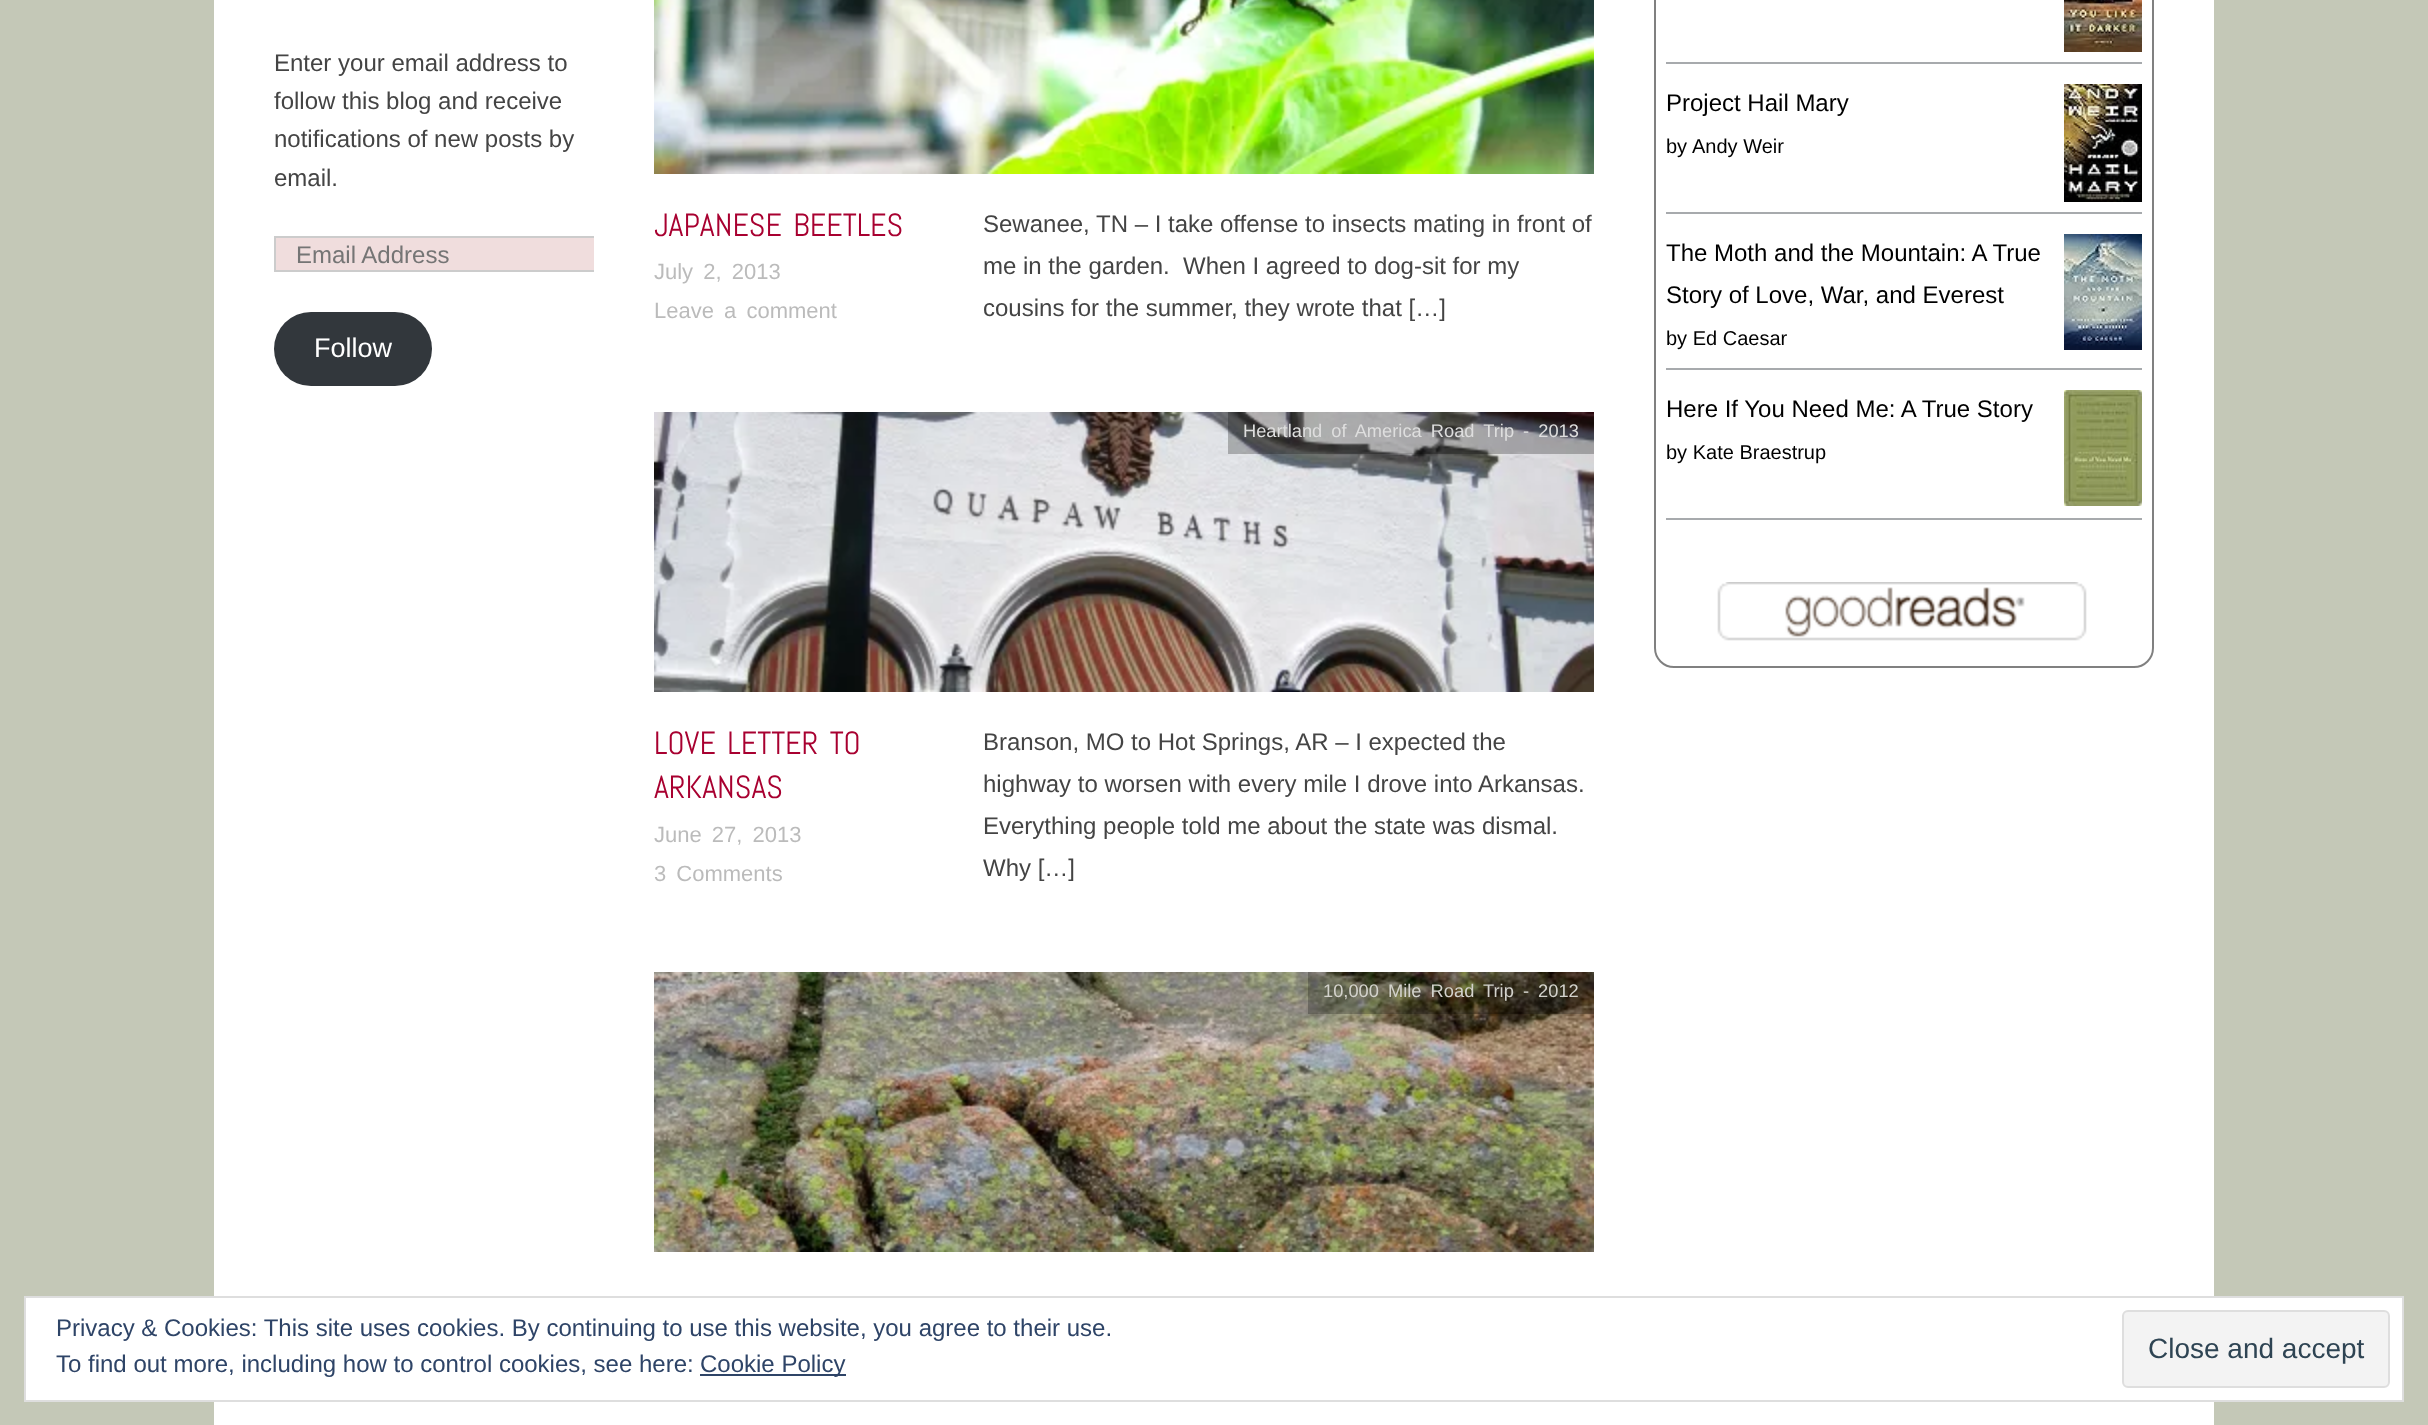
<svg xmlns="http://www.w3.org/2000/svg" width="2428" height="1425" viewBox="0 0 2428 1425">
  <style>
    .t1 { font: 24px Liberation Sans; fill: #444; }
    .t2 { font: 24px Liberation Sans; fill: #757575; }
    .t3 { font: 27px Liberation Sans; fill: #fff; }
    .t4 { font: 32px Abel; fill: #a80030; }
    .t5 { font: 22px Liberation Sans; fill: #bbb; }
    .t6 { font: 18.3px Liberation Sans; fill: #dedede; }
    .t7 { font: 18.3px Liberation Sans; fill: #d3d2cc; }
    .t8 { font: 24px Liberation Sans; fill: #000; }
    .t9 { font: 20px Liberation Sans; fill: #000; }
    .t10 { font: 24px Liberation Sans; fill: #2e4467; }
    .t11 { font: 28px Liberation Sans; fill: #2e4453; }
  </style>
  <defs>
    <clipPath id="clip1"><rect x="274" y="0" width="320" height="386"/></clipPath>
  </defs>
  <rect width="100%" height="100%" fill="#c4c8b7"/>
  <rect x="214" y="0" width="2000" height="1425" fill="#fff"/>
  <text x="274" y="71" class="t1">Enter your email address to</text>
  <text x="274" y="109" class="t1">follow this blog and receive</text>
  <text x="274" y="147" class="t1">notifications of new posts by</text>
  <text x="274" y="186" class="t1">email.</text>
  <rect x="276" y="238" width="318" height="32" fill="#f0dddd"/>
  <g clip-path="url(#clip1)">
    <rect x="275" y="237" width="346" height="34" fill="none" stroke="#ccc" stroke-width="2"/>
  </g>
  <text x="296" y="263" class="t2">Email Address</text>
  <rect x="274" y="312" width="158" height="74" rx="37" fill="#32373c"/>
  <text x="314" y="357" class="t3">Follow</text>
  <image x="654" y="0" width="940" height="174" href="images/1.png"/>
  <text x="654" y="236" word-spacing="4" class="t4">JAPANESE BEETLES</text>
  <text x="654" y="279" word-spacing="4" class="t5">July 2, 2013</text>
  <text x="654" y="318" word-spacing="4" class="t5">Leave a comment</text>
  <text x="983" y="232" class="t1">Sewanee, TN – I take offense to insects mating in front of</text>
  <text x="983" y="274" class="t1" xml:space="preserve">me in the garden.  When I agreed to dog-sit for my</text>
  <text x="983" y="316" class="t1">cousins for the summer, they wrote that […]</text>
  <image x="654" y="412" width="940" height="280" href="images/2.png"/>
  <rect x="1228" y="412" width="366" height="42" fill="#00000040"/>
  <text x="1243" y="437" word-spacing="4" class="t6">Heartland of America Road Trip - 2013</text>
  <text x="654" y="754" word-spacing="4" class="t4">LOVE LETTER TO</text>
  <text x="654" y="798" class="t4">ARKANSAS</text>
  <text x="654" y="842" word-spacing="4" class="t5">June 27, 2013</text>
  <text x="654" y="881" word-spacing="4" class="t5">3 Comments</text>
  <text x="983" y="750" class="t1">Branson, MO to Hot Springs, AR – I expected the</text>
  <text x="983" y="792" class="t1">highway to worsen with every mile I drove into Arkansas.</text>
  <text x="983" y="834" class="t1">Everything people told me about the state was dismal.</text>
  <text x="983" y="876" class="t1">Why […]</text>
  <image x="654" y="972" width="940" height="280" href="images/3.png"/>
  <rect x="1308" y="972" width="286" height="42" fill="#00000040"/>
  <text x="1323" y="997" word-spacing="4" class="t7">10,000 Mile Road Trip - 2012</text>
  <rect x="1655" y="-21" width="498" height="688" rx="19" fill="none" stroke="#808080" stroke-width="2"/>
  <rect x="1666" y="62" width="476" height="2" fill="#a7aaad"/>
  <image x="2064" y="0" width="78" height="52" href="images/4.png"/>
  <rect x="1666" y="212" width="476" height="2" fill="#a7aaad"/>
  <text x="1666" y="111" class="t8">Project Hail Mary</text>
  <image x="2064" y="84" width="78" height="118" href="images/5.png"/>
  <text x="1666" y="153" class="t9">by</text>
  <text x="1692" y="153" class="t9">Andy Weir</text>
  <rect x="1666" y="368" width="476" height="2" fill="#a7aaad"/>
  <text x="1666" y="261" class="t8">The Moth and the Mountain: A True</text>
  <text x="1666" y="303" class="t8">Story of Love, War, and Everest</text>
  <image x="2064" y="234" width="78" height="116" href="images/6.png"/>
  <text x="1666" y="345" class="t9">by Ed Caesar</text>
  <rect x="1666" y="518" width="476" height="2" fill="#a7aaad"/>
  <text x="1666" y="417" class="t8">Here If You Need Me: A True Story</text>
  <image x="2064" y="390" width="78" height="116" href="images/7.png"/>
  <text x="1666" y="459" class="t9">by Kate Braestrup</text>
  <image x="1717" y="582" width="370" height="59" href="images/8.png"/>
  <rect x="25" y="1297" width="2378" height="104" fill="#fff" stroke="#dedede" stroke-width="2"/>
  <text x="56" y="1336" class="t10">Privacy &amp; Cookies: This site uses cookies. By continuing to use this website, you agree to their use.</text>
  <text x="56" y="1372" class="t10">To find out more, including how to control cookies, see here:</text>
  <rect x="700" y="1374" width="146" height="2" fill="#2e4467"/>
  <text x="700" y="1372" class="t10">Cookie Policy</text>
  <rect x="2123" y="1311" width="266" height="76" rx="5" fill="#f3f3f3" stroke="#dedede" stroke-width="2"/>
  <text x="2148" y="1358" class="t11">Close and accept</text>
</svg>
